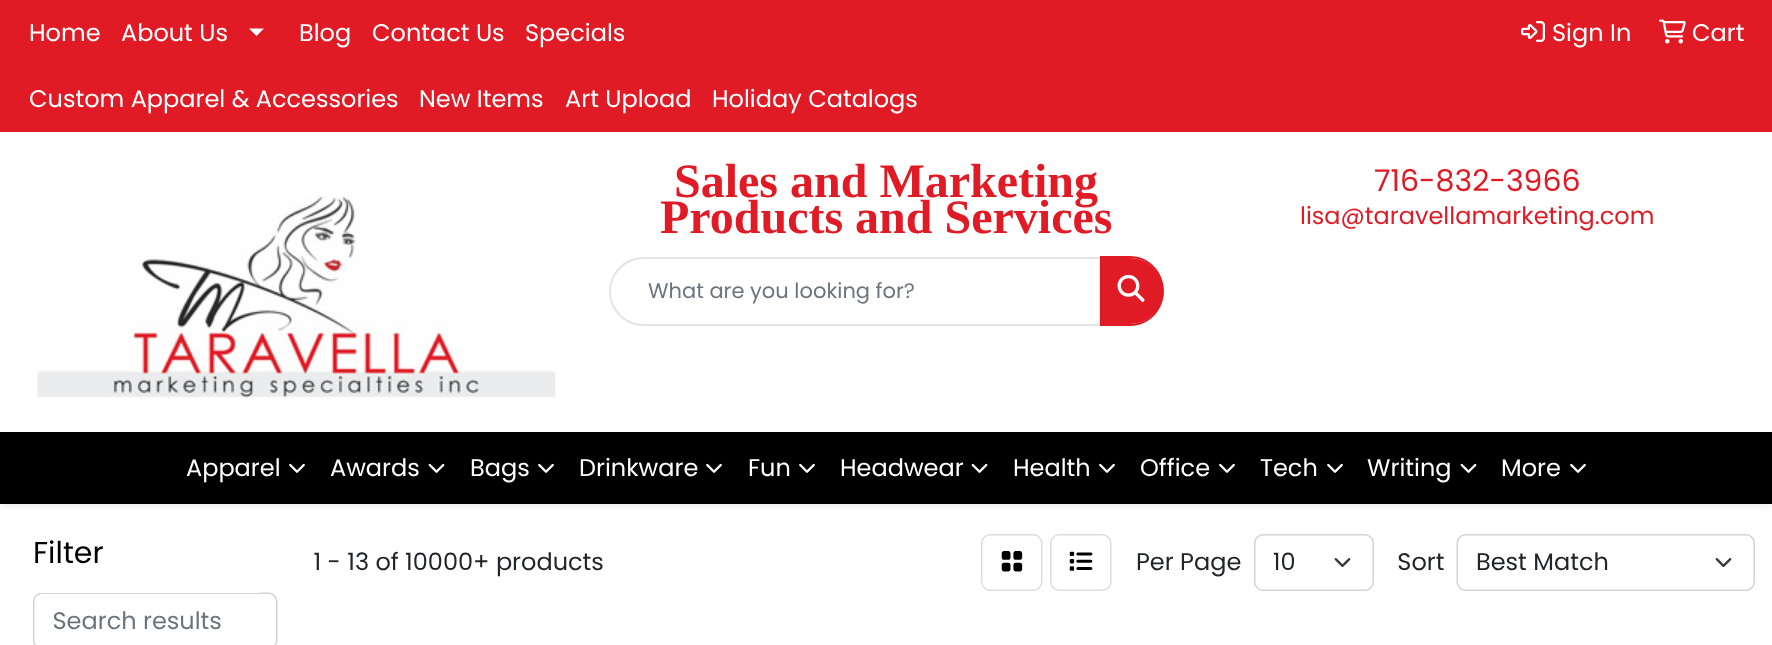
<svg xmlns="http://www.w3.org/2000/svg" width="1772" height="645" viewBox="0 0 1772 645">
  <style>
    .t1 { font: 24px Poppins; fill: #fff; }
    .t2 { font: bold 48px Liberation Serif; fill: #e01b25; }
    .t3 { font: 21px Poppins; fill: #6c757d; }
    .t4 { font: 30px Poppins; fill: #e01b25; }
    .t5 { font: 24px Poppins; fill: #e01b25; }
  </style>
  <rect width="100%" height="100%" fill="#fff"/>
  <rect x="0" y="0" width="1772" height="132" fill="#e01b25"/>
  <text x="29" y="41" class="t1">Home</text>
  <text x="121" y="41" class="t1">About Us</text>
  <path d="M249 28.5H264L256.5 36Z" fill="#fff"/>
  <text x="299" y="41" class="t1">Blog</text>
  <text x="372" y="41" class="t1">Contact Us</text>
  <text x="525" y="41" class="t1">Specials</text>
  <text x="29" y="107" class="t1">Custom Apparel &amp; Accessories</text>
  <text x="419" y="107" class="t1">New Items</text>
  <text x="565" y="107" class="t1">Art Upload</text>
  <text x="712" y="107" class="t1">Holiday Catalogs</text>
  <image x="1521" y="21" width="24" height="21" href="images/1.png"/>
  <text x="1552" y="41" class="t1">Sign In</text>
  <image x="1659" y="19" width="27" height="25" href="images/2.png"/>
  <text x="1692" y="41" class="t1">Cart</text>
  <image x="37" y="196" width="519" height="202" href="images/3.png"/>
  <text x="674" y="197" class="t2">Sales and Marketing</text>
  <text x="660" y="233" class="t2">Products and Services</text>
  <path d="M643.5 258H1100V325H643.5C625 325 610 310 610 291.5C610 273 625 258 643.5 258Z" fill="none" stroke="#e4e4e4" stroke-width="2"/>
  <text x="648" y="298" class="t3">What are you looking for?</text>
  <path d="M1100 258H1130C1148 258 1163 273 1163 291C1163 309 1148 324 1130 324H1100Z" fill="#e01b25"/>
  <path d="M1100 256H1130C1149 256 1164 272 1164 291C1164 310 1149 326 1130 326H1100ZM1100 258H1130C1148 258 1162 273 1162 291C1162 309 1148 324 1130 324H1100Z" fill="#e01b25" fill-rule="evenodd"/>
  <image x="1117" y="274" width="28" height="28" href="images/4.png"/>
  <text x="1374" y="191" class="t4">716-832-3966</text>
  <text x="1300" y="224" class="t5">lisa@taravellamarketing.com</text>
  <rect x="0" y="435" width="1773" height="72" fill="#00000012" filter="blur(3px)"/>
  <rect x="0" y="432" width="1772" height="72" fill="#000"/>
  <text x="186" y="476" class="t1">Apparel</text>
  <image x="289" y="463" width="16" height="10" href="images/5.png"/>
  <text x="330" y="476" class="t1">Awards</text>
  <image x="428" y="463" width="17" height="10" href="images/6.png"/>
  <text x="470" y="476" class="t1">Bags</text>
  <image x="538" y="463" width="16" height="10" href="images/5.png"/>
  <text x="579" y="476" class="t1">Drinkware</text>
  <image x="706" y="463" width="16" height="10" href="images/5.png"/>
  <text x="748" y="476" class="t1">Fun</text>
  <image x="799" y="463" width="16" height="10" href="images/5.png"/>
  <text x="840" y="476" class="t1">Headwear</text>
  <image x="971" y="463" width="17" height="10" href="images/6.png"/>
  <text x="1013" y="476" class="t1">Health</text>
  <image x="1099" y="463" width="16" height="10" href="images/5.png"/>
  <text x="1140" y="476" class="t1">Office</text>
  <image x="1219" y="463" width="16" height="10" href="images/5.png"/>
  <text x="1260" y="476" class="t1">Tech</text>
  <image x="1327" y="463" width="16" height="10" href="images/5.png"/>
  <text x="1367" y="476" class="t1">Writing</text>
  <image x="1460" y="463" width="17" height="10" href="images/6.png"/>
  <text x="1501" y="476" class="t1">More</text>
  <image x="1570" y="463" width="16" height="10" href="images/5.png"/>
  <image x="33" y="534" width="1722" height="111" href="images/7.png"/>
</svg>
